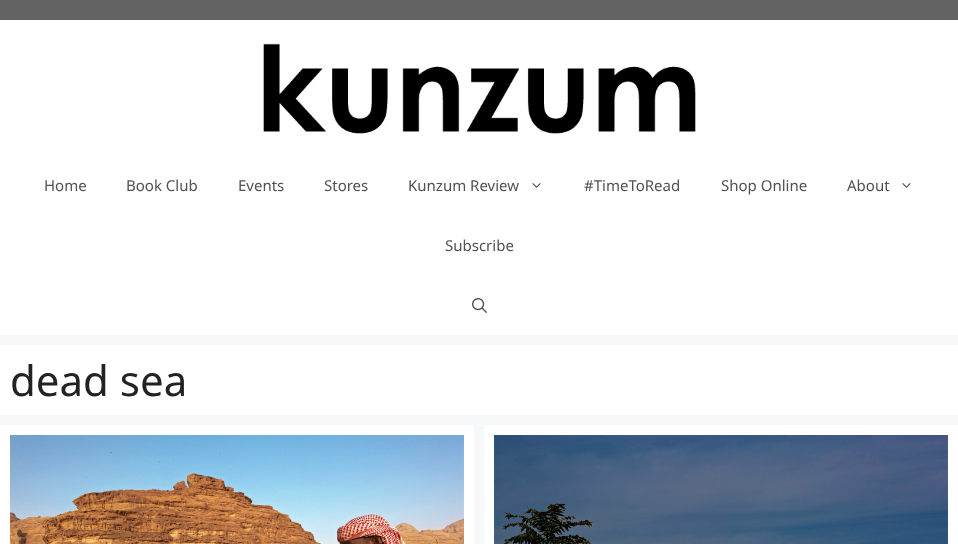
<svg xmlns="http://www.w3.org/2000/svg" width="958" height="544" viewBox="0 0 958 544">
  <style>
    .t1 { font: 15px Noto Sans; fill: #515151; }
    .t2 { font: 42px Noto Sans; fill: #222; }
  </style>
  <rect width="100%" height="100%" fill="#f7f8f9"/>
  <rect x="0" y="0" width="958" height="20" fill="#636363"/>
  <rect x="0" y="20" width="958" height="315" fill="#fff"/>
  <image x="263" y="43" width="433" height="91" href="images/1.png"/>
  <text x="44" y="191" class="t1">Home</text>
  <text x="126" y="191" class="t1">Book Club</text>
  <text x="238" y="191" class="t1">Events</text>
  <text x="324" y="191" class="t1">Stores</text>
  <text x="408" y="191" class="t1">Kunzum Review</text>
  <image x="532" y="183" width="9" height="5" href="images/2.png"/>
  <text x="584" y="191" class="t1">#TimeToRead</text>
  <text x="721" y="191" class="t1">Shop Online</text>
  <text x="847" y="191" class="t1">About</text>
  <image x="902" y="183" width="9" height="5" href="images/2.png"/>
  <text x="445" y="251" class="t1">Subscribe</text>
  <image x="472" y="298" width="15" height="15" href="images/3.png"/>
  <rect x="0" y="345" width="958" height="70" fill="#fff"/>
  <text x="10" y="396" class="t2">dead sea</text>
  <rect x="0" y="425" width="474" height="119" fill="#fff"/>
  <image x="10" y="435" width="454" height="109" href="images/4.png"/>
  <rect x="484" y="425" width="474" height="119" fill="#fff"/>
  <image x="494" y="435" width="454" height="109" href="images/5.png"/>
</svg>
